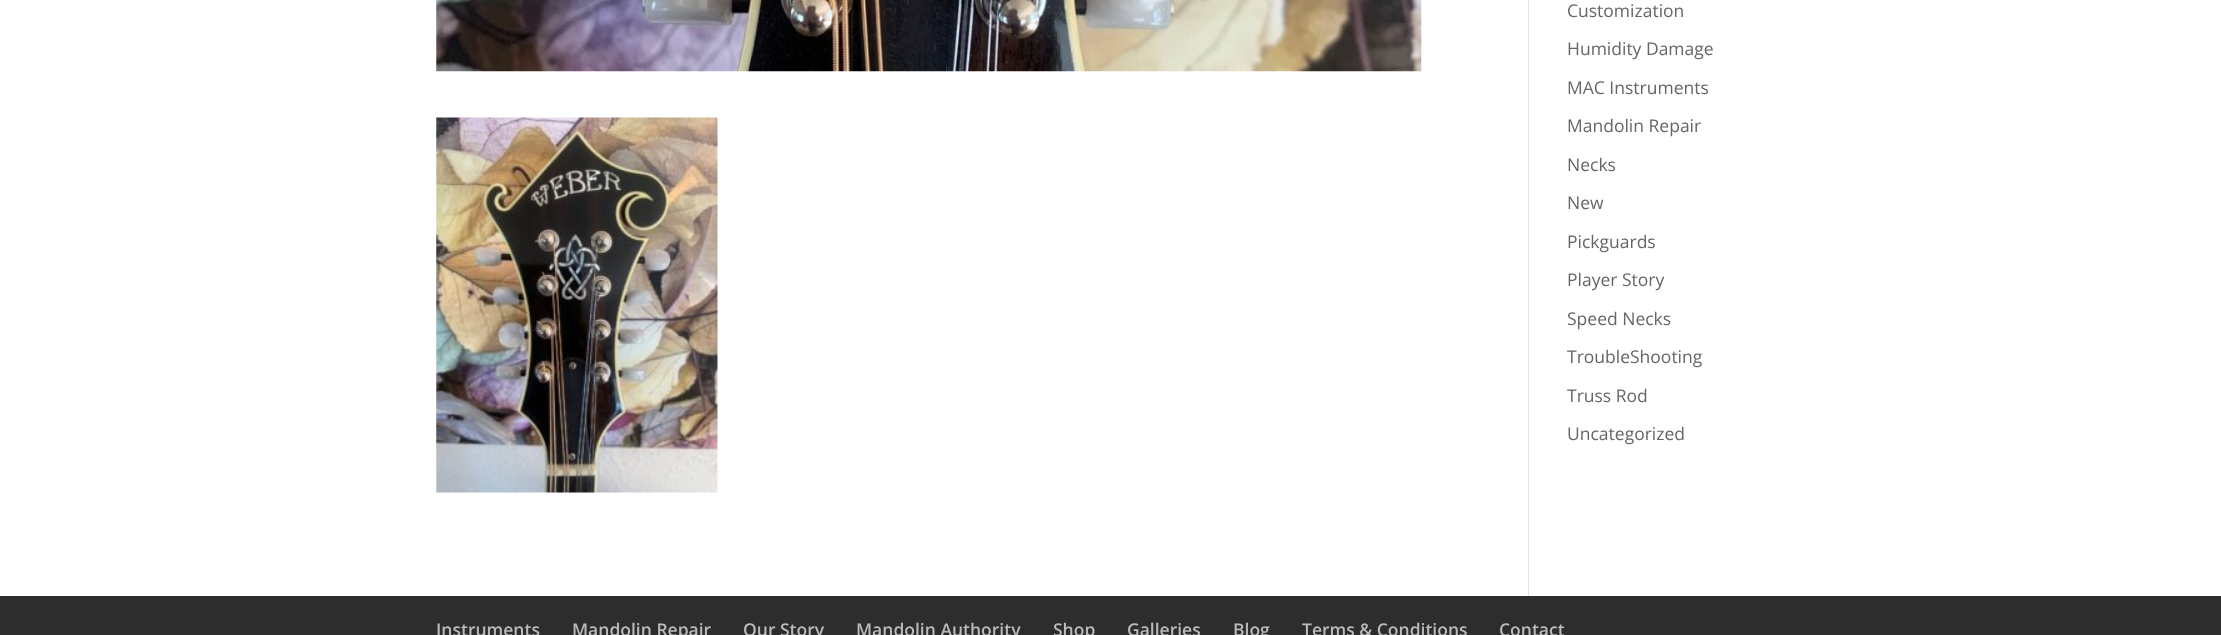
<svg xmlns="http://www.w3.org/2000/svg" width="2221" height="635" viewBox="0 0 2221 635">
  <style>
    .t1 { font: 17.5px Open Sans; fill: #666; }
    .t2 { font: 600 17.5px Open Sans; fill: #bbb; }
  </style>
  <rect width="100%" height="100%" fill="#fff"/>
  <rect x="1528" y="0" width="1" height="596" fill="#e2e2e2"/>
  <image x="436" y="0" width="986" height="72" href="images/1.png"/>
  <image x="436" y="117" width="282" height="376" href="images/2.png"/>
  <text x="1567" y="17" class="t1">Customization</text>
  <text x="1567" y="55" class="t1">Humidity Damage</text>
  <text x="1567" y="94" class="t1">MAC Instruments</text>
  <text x="1567" y="132" class="t1">Mandolin Repair</text>
  <text x="1567" y="171" class="t1">Necks</text>
  <text x="1567" y="209" class="t1">New</text>
  <text x="1567" y="248" class="t1">Pickguards</text>
  <text x="1567" y="286" class="t1">Player Story</text>
  <text x="1567" y="325" class="t1">Speed Necks</text>
  <text x="1567" y="363" class="t1">TroubleShooting</text>
  <text x="1567" y="402" class="t1">Truss Rod</text>
  <text x="1567" y="440" class="t1">Uncategorized</text>
  <rect x="0" y="596" width="2221" height="39" fill="#2d2d2d"/>
  <text x="436" y="636" class="t2">Instruments</text>
  <text x="572" y="636" class="t2">Mandolin Repair</text>
  <text x="743" y="636" class="t2">Our Story</text>
  <text x="856" y="636" class="t2">Mandolin Authority</text>
  <text x="1053" y="636" class="t2">Shop</text>
  <text x="1127" y="636" class="t2">Galleries</text>
  <text x="1233" y="636" class="t2">Blog</text>
  <text x="1302" y="636" class="t2">Terms &amp; Conditions</text>
  <text x="1499" y="636" class="t2">Contact</text>
</svg>
